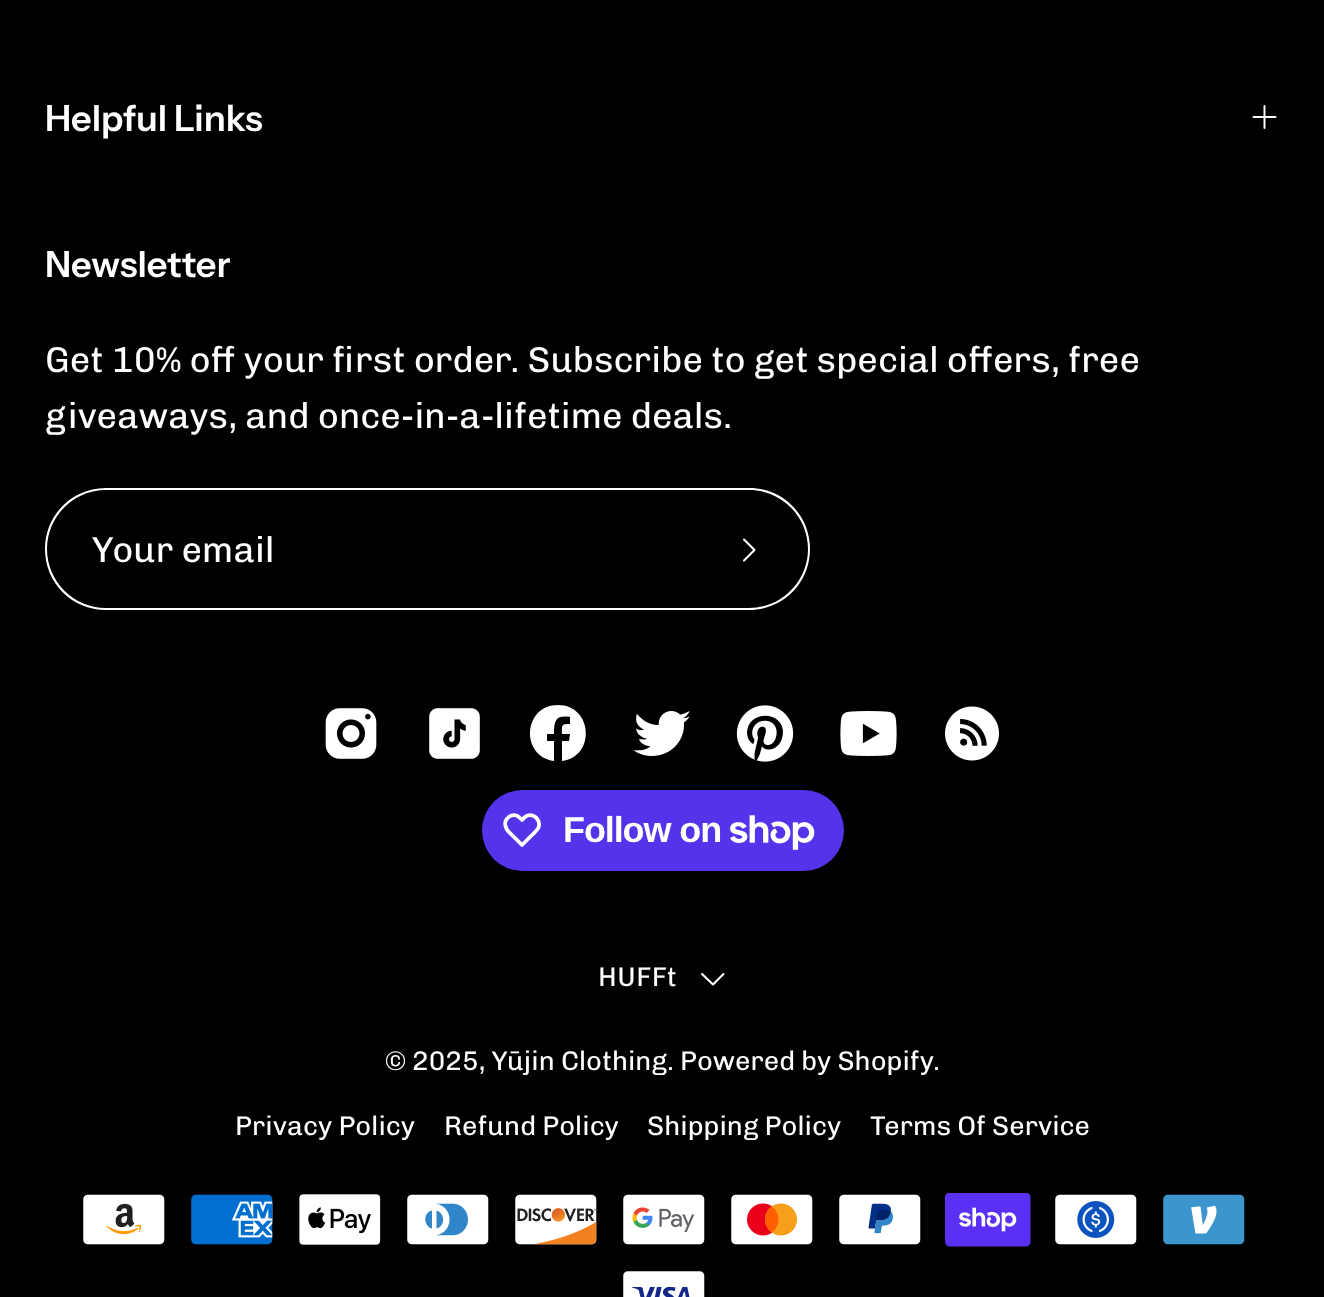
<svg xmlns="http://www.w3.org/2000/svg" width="1324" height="1297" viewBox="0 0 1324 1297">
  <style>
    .t1 { font: 600 36px Instrument Sans; fill: #fff; }
    .t2 { font: 36px Chivo; fill: #fff; }
    .t3 { font: bold 36px Liberation Sans; letter-spacing: -1.1px; fill: #fff; }
    .t4 { font: 27px Chivo; letter-spacing: 0.5px; fill: #fff; }
    .t5 { font: 27px Chivo; fill: #fff; }
  </style>
  <rect width="100%" height="100%" fill="#000"/>
  <text x="45" y="131" class="t1">Helpful Links</text>
  <path d="M1253.5 117H1275.5M1264.5 106V128" fill="none" stroke="#fff" stroke-width="2" stroke-linecap="round" stroke-linejoin="round"/>
  <text x="45" y="277" class="t1">Newsletter</text>
  <text x="45" y="372" class="t2">Get 10% off your first order. Subscribe to get special offers, free</text>
  <text x="45" y="428" class="t2">giveaways, and once-in-a-lifetime deals.</text>
  <path d="M106 488H688V610H106C72 610 45 583 45 549C45 515 72 488 106 488ZM106 490H688V608H106C73 608 47 581 47 549C47 517 73 490 106 490Z" fill="#fff" fill-rule="evenodd"/>
  <text x="92" y="562" class="t2">Your email</text>
  <path d="M688 488H749C783 488 810 515 810 549C810 583 783 610 749 610H688ZM688 490H749C782 490 808 517 808 549C808 581 782 608 749 608H688Z" fill="#fff" fill-rule="evenodd"/>
  <path d="M744 539.5L754.5 550L744 560.5" fill="none" stroke="#fff" stroke-width="2.1" stroke-linecap="round" stroke-linejoin="round"/>
  <image x="325" y="708" width="52" height="51" href="images/1.png"/>
  <image x="429" y="708" width="51" height="51" href="images/2.png"/>
  <path d="M558 705C523 705 520 756 554 761V741H547V734H554C554 720 556 715 570 717V724C561 724 562 725 562 734H570L569 741H562V761C596 757 593 705 558 705Z" fill="#fff"/>
  <image x="633" y="711" width="57" height="45" href="images/3.png"/>
  <image x="736" y="705" width="58" height="57" href="images/4.png"/>
  <image x="840" y="711" width="57" height="45" href="images/5.png"/>
  <image x="945" y="706" width="54" height="55" href="images/6.png"/>
  <rect x="482" y="790" width="362" height="81" rx="40.5" fill="#5433eb"/>
  <path d="M520 818L522 820C523.5 818 525 816.5 527.5 815.5C534.5 813.5 541 820.5 538.5 827.5C537 830.5 534 833 531.5 835.5L522 845L512.5 835.5C510 833 507 831 506 827.5C502 818.5 513.5 811 520 818Z" fill="none" stroke="#fff" stroke-width="3.8" stroke-linejoin="round"/>
  <text x="563" y="842" class="t3">Follow on</text>
  <image x="730" y="815" width="85" height="35" href="images/7.png"/>
  <text x="598" y="986" class="t4">HUFFt</text>
  <path d="M723.5 974L713 984.5L702 974" fill="none" stroke="#fff" stroke-width="2.1" stroke-linecap="round" stroke-linejoin="round"/>
  <text x="385" y="1070" class="t5">© 2025, Yūjin Clothing. Powered by Shopify</text>
  <text x="933" y="1070" class="t5">.</text>
  <text x="235" y="1135" class="t5">Privacy Policy</text>
  <text x="444" y="1135" class="t5">Refund Policy</text>
  <text x="647" y="1135" class="t5">Shipping Policy</text>
  <text x="870" y="1135" class="t5">Terms Of Service</text>
  <image x="83" y="1194" width="82" height="51" href="images/8.png"/>
  <image x="191" y="1194" width="82" height="51" href="images/9.png"/>
  <image x="299" y="1194" width="82" height="51" href="images/10.png"/>
  <image x="407" y="1194" width="82" height="51" href="images/11.png"/>
  <image x="515" y="1194" width="82" height="51" href="images/12.png"/>
  <image x="623" y="1194" width="82" height="51" href="images/13.png"/>
  <image x="731" y="1194" width="82" height="51" href="images/14.png"/>
  <image x="839" y="1194" width="82" height="51" href="images/15.png"/>
  <image x="945" y="1193" width="86" height="54" href="images/16.png"/>
  <image x="1055" y="1194" width="82" height="51" href="images/17.png"/>
  <image x="1163" y="1194" width="82" height="51" href="images/18.png"/>
  <image x="623" y="1271" width="82" height="26" href="images/19.png"/>
</svg>
